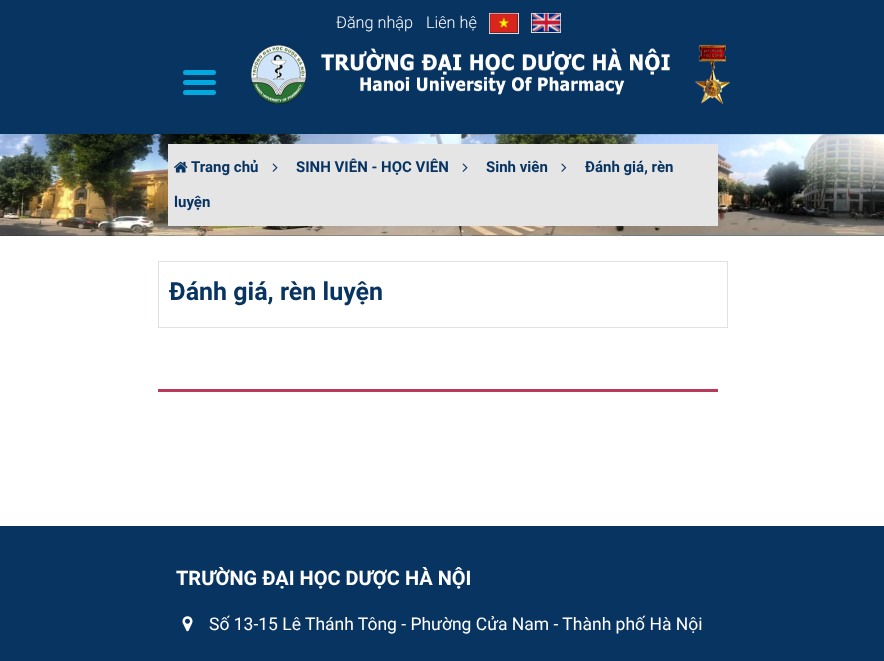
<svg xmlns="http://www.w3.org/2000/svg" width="884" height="661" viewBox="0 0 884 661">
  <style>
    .t1 { font: 300 16.25px Roboto; fill: #fff; }
    .t2 { font: bold 15px Roboto; fill: #083462; }
    .t3 { font: bold 25px Roboto; fill: #083462; }
    .t4 { font: bold 20px Roboto; fill: #fff; }
    .t5 { font: 17.5px Roboto; fill: #fff; }
  </style>
  <rect width="100%" height="100%" fill="#fff"/>
  <rect x="0" y="0" width="884" height="134" fill="#083462"/>
  <text x="336" y="28" class="t1">Đăng nhập</text>
  <text x="426" y="28" class="t1">Liên hệ</text>
  <rect x="489.5" y="13.5" width="29" height="20" fill="#072c53" stroke="#ddd"/>
  <image x="489" y="13" width="29" height="20" href="images/1.png"/>
  <rect x="531.5" y="13.5" width="29" height="19" fill="#072c53" stroke="#ddd"/>
  <image x="531" y="13" width="30" height="19" href="images/2.png"/>
  <rect x="183" y="80" width="33" height="5" rx="2.5" fill="#00a9e0"/>
  <rect x="183" y="70" width="33" height="5" rx="2.5" fill="#00a9e0"/>
  <rect x="183" y="90" width="33" height="5" rx="2.5" fill="#00a9e0"/>
  <image x="251" y="44" width="479" height="60" href="images/3.png"/>
  <image x="0" y="134" width="884" height="102" href="images/4.png"/>
  <rect x="168" y="144" width="550" height="82" fill="#e5e5e5"/>
  <image x="174" y="161" width="14" height="12" href="images/5.png"/>
  <text x="191" y="172" class="t2">Trang chủ</text>
  <image x="272" y="163" width="6" height="9" href="images/6.png"/>
  <text x="296" y="172" class="t2">SINH VIÊN - HỌC VIÊN</text>
  <image x="462" y="163" width="6" height="9" href="images/6.png"/>
  <text x="486" y="172" class="t2">Sinh viên</text>
  <image x="561" y="163" width="6" height="9" href="images/7.png"/>
  <text x="585" y="172" class="t2">Đánh giá, rèn</text>
  <text x="174" y="207" class="t2">luyện</text>
  <rect x="158.5" y="261.5" width="569" height="66" fill="none" stroke="#dee2e6"/>
  <text x="169" y="300" class="t3">Đánh giá, rèn luyện</text>
  <rect x="158" y="389" width="560" height="3" fill="#ba3b59"/>
  <rect x="0" y="526" width="884" height="135" fill="#083462"/>
  <text x="176" y="585" class="t4">TRƯỜNG ĐẠI HỌC DƯỢC HÀ NỘI</text>
  <image x="182" y="616" width="11" height="16" href="images/8.png"/>
  <text x="209" y="630" class="t5">Số 13-15 Lê Thánh Tông - Phường Cửa Nam - Thành phố Hà Nội</text>
</svg>
